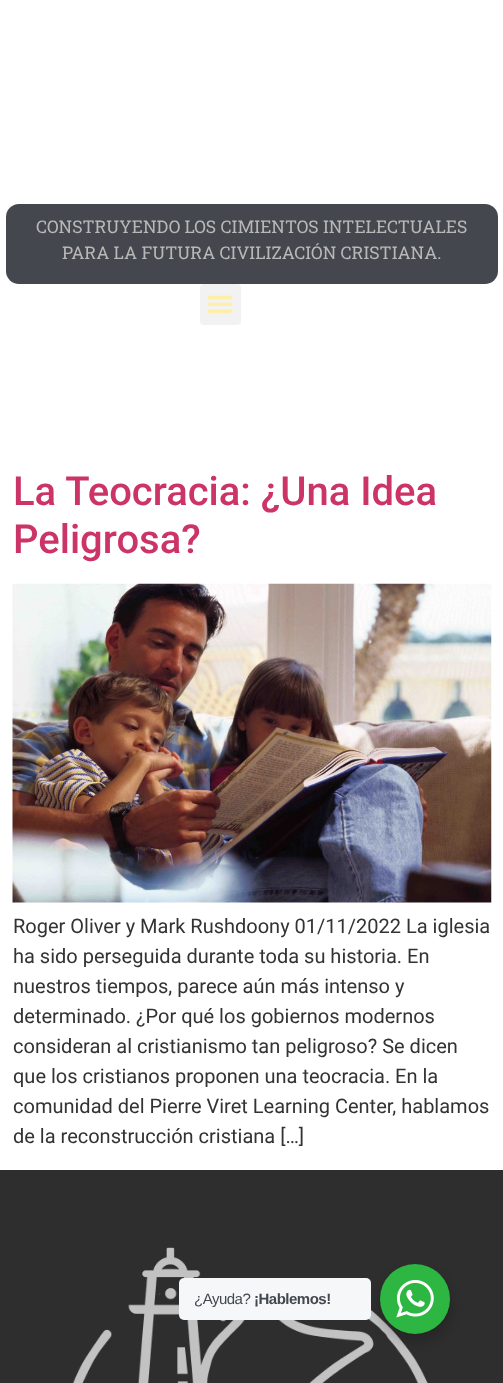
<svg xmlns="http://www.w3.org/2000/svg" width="503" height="1383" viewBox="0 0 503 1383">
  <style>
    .t1 { font: 17.5px Roboto Slab; fill: #b8b8b8; }
    .t2 { font: 500 40px Roboto; fill: #c36; }
    .t3 { font: 20px Roboto; fill: #333; }
    .t4 { font: 15px Liberation Sans; letter-spacing: -0.5px; fill: #43474e; }
    .t5 { font: bold 15px Liberation Sans; letter-spacing: -0.5px; fill: #43474e; }
  </style>
  <rect width="100%" height="100%" fill="#fff"/>
  <rect x="6" y="204" width="492" height="80" rx="13" fill="#44474d"/>
  <text x="36" y="233" class="t1">CONSTRUYENDO LOS CIMIENTOS INTELECTUALES</text>
  <text x="62" y="259" class="t1">PARA LA FUTURA CIVILIZACIÓN CRISTIANA.</text>
  <rect x="200" y="284" width="41" height="41" rx="4" fill="#f2f2f2"/>
  <image x="207" y="295" width="26" height="18" href="images/1.png"/>
  <text x="13" y="505" class="t2">La Teocracia: ¿Una Idea</text>
  <text x="13" y="553" class="t2">Peligrosa?</text>
  <image x="12" y="583" width="480" height="320" href="images/2.png"/>
  <text x="13" y="933" class="t3">Roger Oliver y Mark Rushdoony 01/11/2022 La iglesia</text>
  <text x="13" y="963" class="t3">ha sido perseguida durante toda su historia. En</text>
  <text x="13" y="993" class="t3">nuestros tiempos, parece aún más intenso y</text>
  <text x="13" y="1023" class="t3">determinado. ¿Por qué los gobiernos modernos</text>
  <text x="13" y="1053" class="t3">consideran al cristianismo tan peligroso? Se dicen</text>
  <text x="13" y="1083" class="t3">que los cristianos proponen una teocracia. En la</text>
  <text x="13" y="1113" class="t3">comunidad del Pierre Viret Learning Center, hablamos</text>
  <text x="13" y="1143" class="t3">de la reconstrucción cristiana […]</text>
  <rect x="0" y="1170" width="503" height="213" fill="#2e2e2e"/>
  <image x="72" y="1247" width="356" height="136" href="images/3.png"/>
  <rect x="378" y="1269" width="75" height="75" rx="37.5" fill="#00000024" filter="blur(5px)"/>
  <rect x="179" y="1278" width="192" height="42" rx="5" fill="#f5f7f9"/>
  <text x="194" y="1304" class="t4">¿Ayuda?</text>
  <text x="254" y="1304" class="t5">¡Hablemos!</text>
  <circle cx="415" cy="1299" r="35" fill="#2db742"/>
  <image x="396" y="1280" width="38" height="38" href="images/4.png"/>
</svg>
